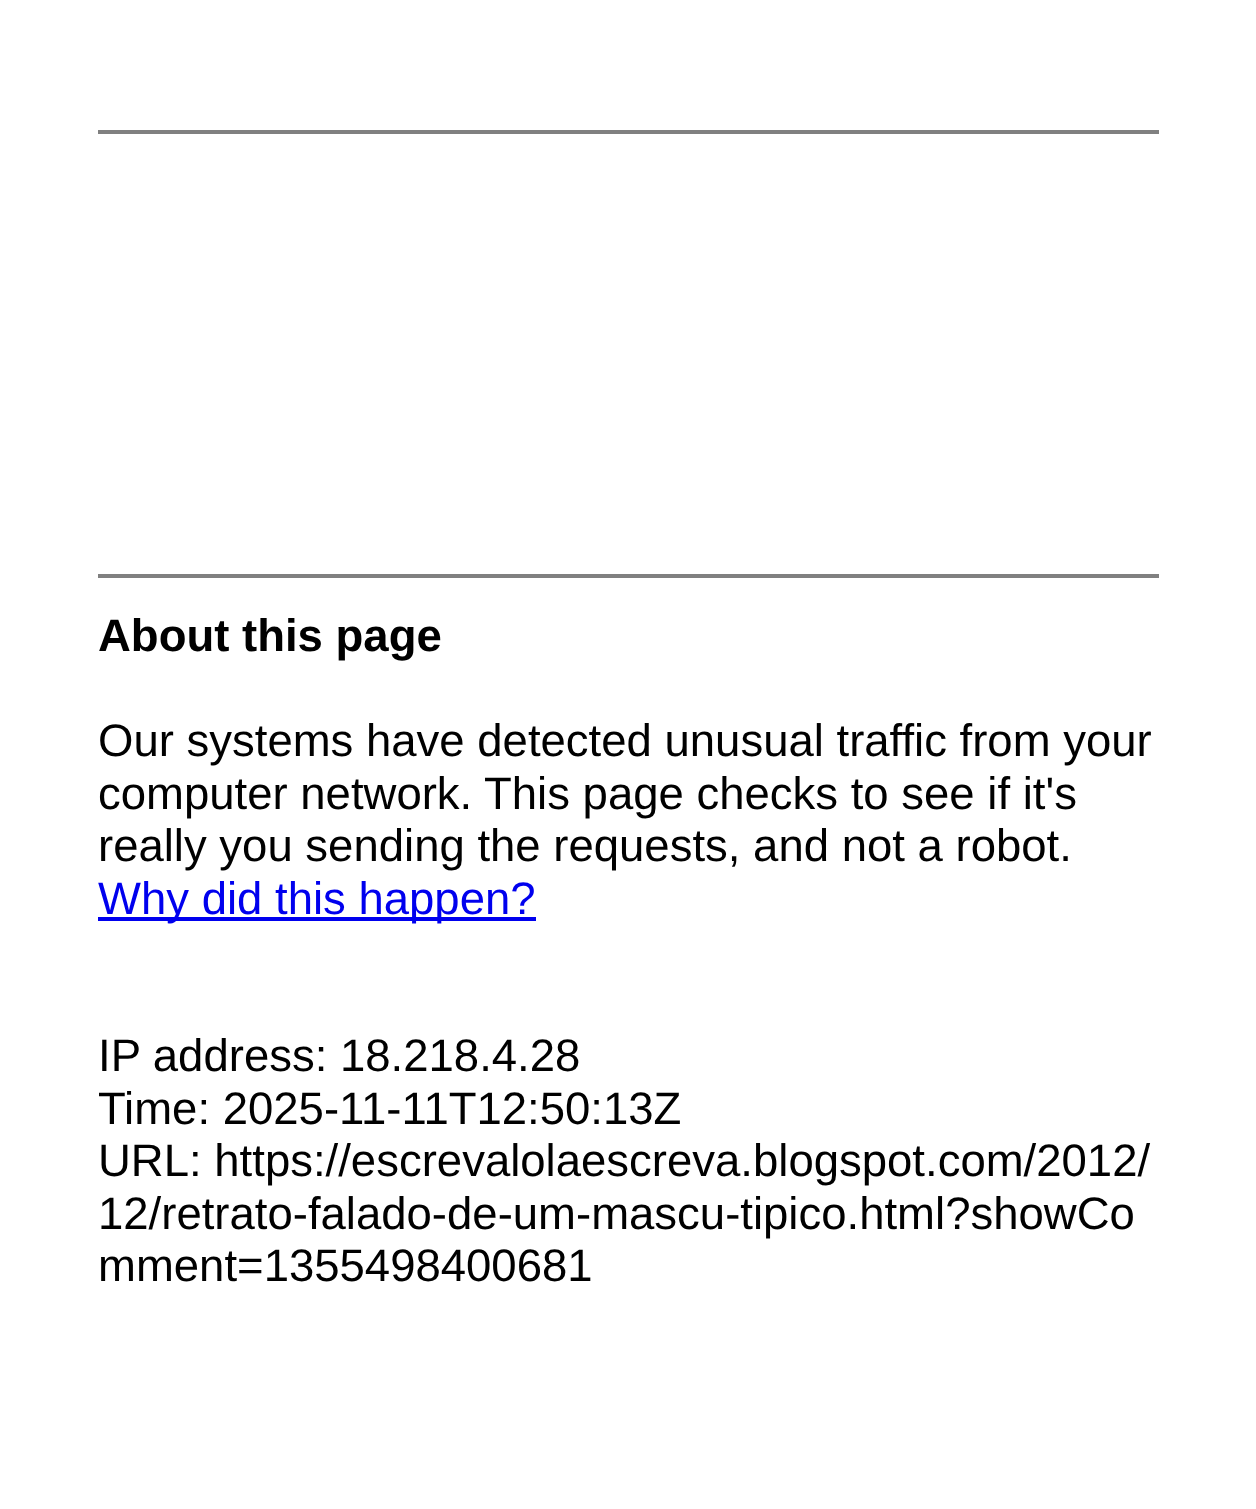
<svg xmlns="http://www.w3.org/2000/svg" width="1256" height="1509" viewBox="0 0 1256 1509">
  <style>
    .t1 { font: bold 45.5px Liberation Sans; fill: #000; }
    .t2 { font: 45.5px Liberation Sans; fill: #000; }
    .t3 { font: 45.5px Liberation Sans; fill: #00e; }
  </style>
  <rect width="100%" height="100%" fill="#fff"/>
  <rect x="98" y="130" width="1061" height="4" fill="#808080"/>
  <rect x="98" y="574" width="1061" height="4" fill="#808080"/>
  <text x="98" y="651" class="t1">About this page</text>
  <text x="98" y="756" class="t2">Our systems have detected unusual traffic from your</text>
  <text x="98" y="809" class="t2">computer network.</text>
  <text x="484" y="809" class="t2">This page checks to see if it's</text>
  <text x="98" y="861" class="t2">really you sending the requests, and not a robot.</text>
  <rect x="98" y="917" width="438" height="4" fill="#00e"/>
  <text x="98" y="914" class="t3">Why did this happen?</text>
  <text x="98" y="1071" class="t2">IP address: 18.218.4.28</text>
  <text x="98" y="1124" class="t2">Time: 2025-11-11T12:50:13Z</text>
  <text x="98" y="1176" class="t2">URL: https://escrevalolaescreva.blogspot.com/2012/</text>
  <text x="98" y="1229" class="t2">12/retrato-falado-de-um-mascu-tipico.html?showCo</text>
  <text x="98" y="1281" class="t2">mment=1355498400681</text>
</svg>
